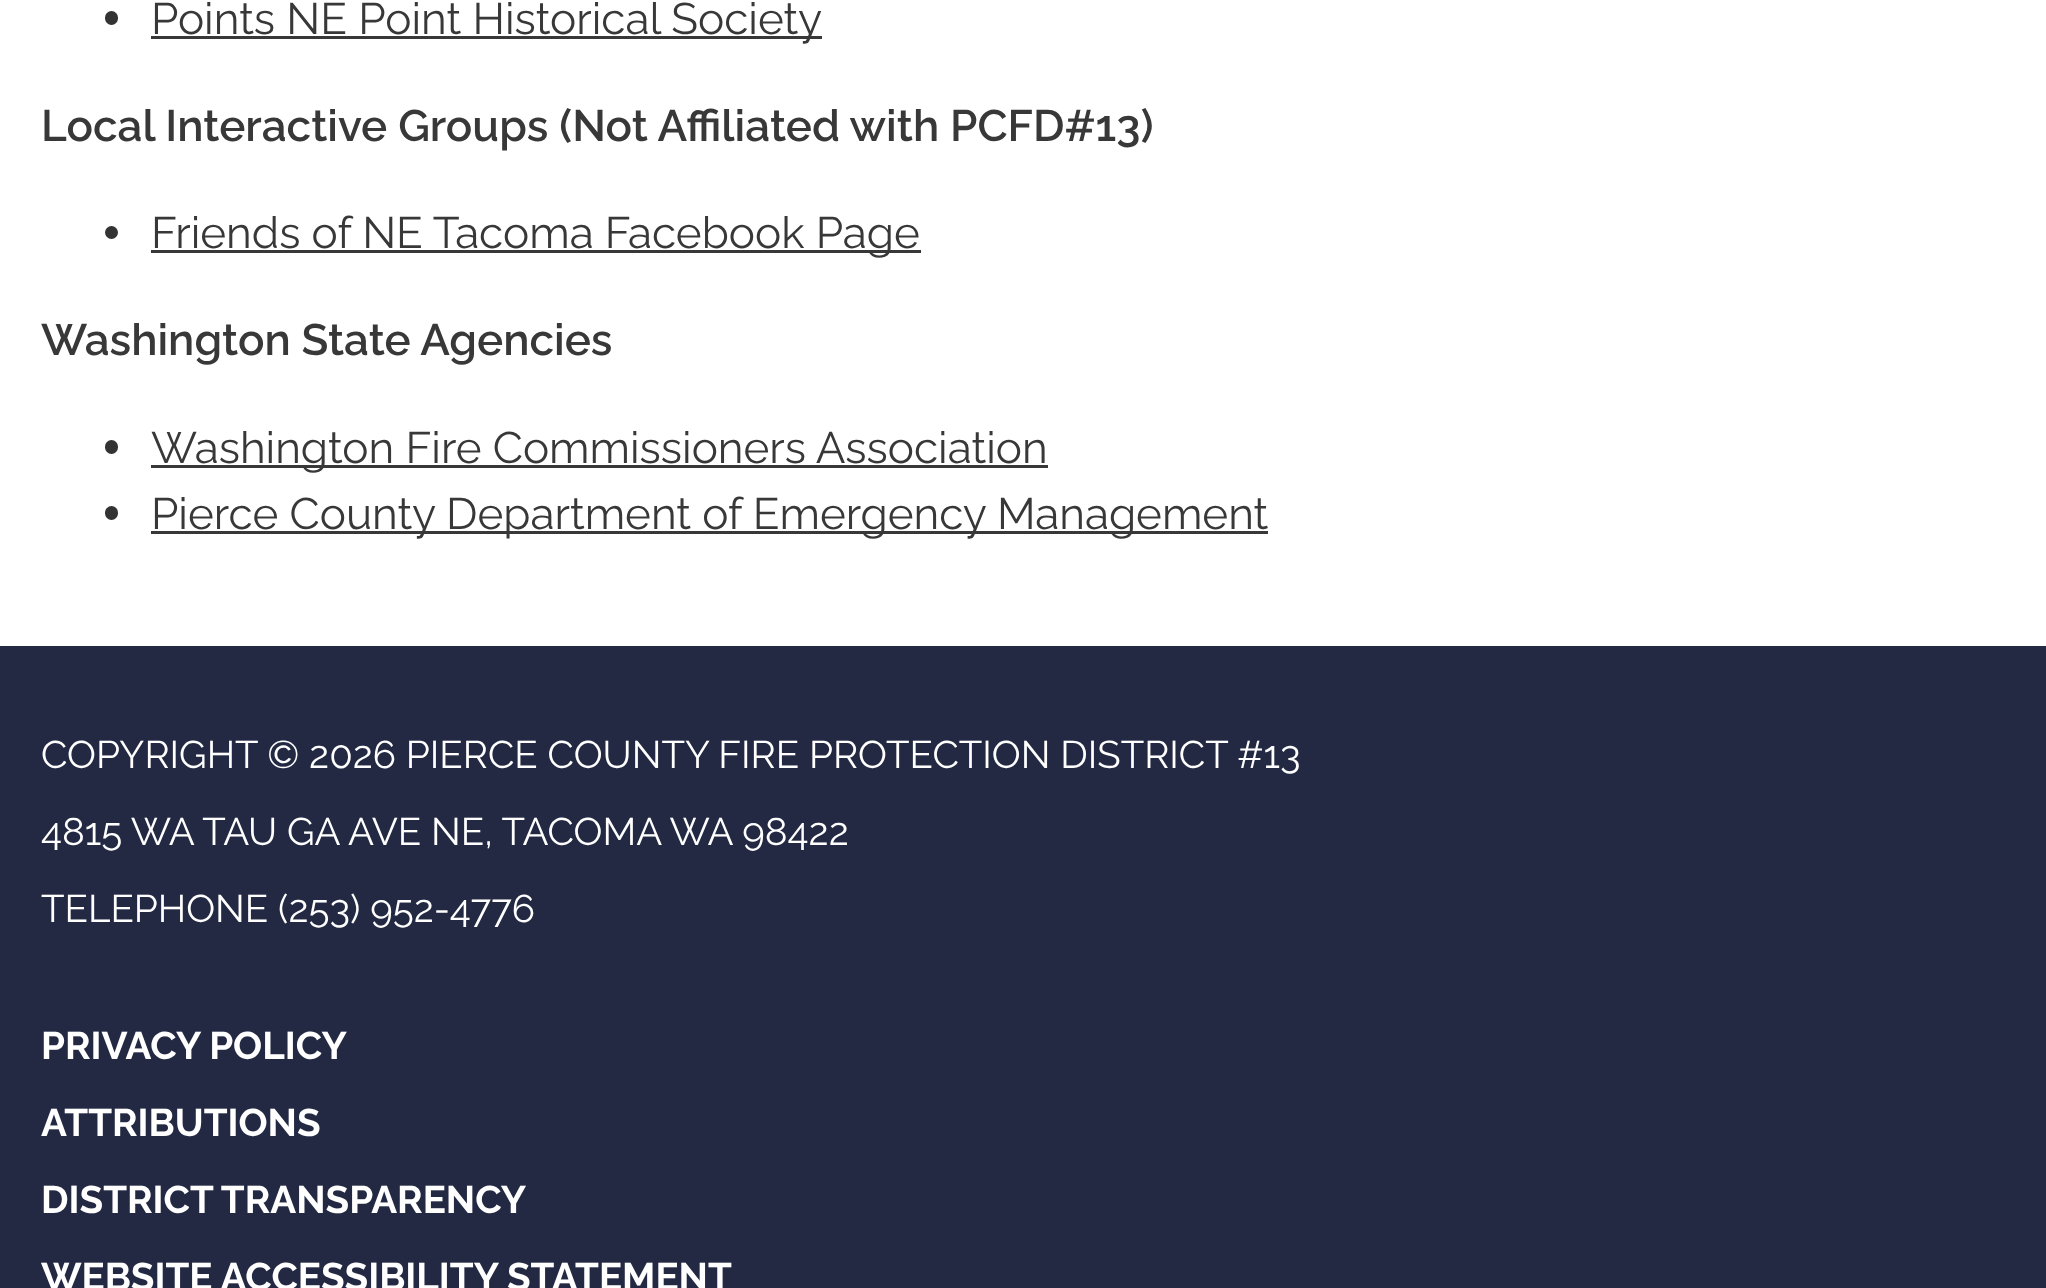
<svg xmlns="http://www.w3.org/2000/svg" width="2046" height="1288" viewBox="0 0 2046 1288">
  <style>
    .t1 { font: 44px Raleway; fill: #383838; }
    .t2 { font: 600 44px Raleway; fill: #383838; }
    .t3 { font: 38.5px Raleway; fill: #fff; }
    .t4 { font: bold 38.5px Raleway; fill: #fff; }
  </style>
  <rect width="100%" height="100%" fill="#232943"/>
  <rect x="0" y="0" width="2046" height="646" fill="#fff"/>
  <rect x="105" y="11" width="13" height="14" rx="6.5" fill="#333"/>
  <rect x="151" y="36" width="671" height="3" fill="#383838"/>
  <text x="151" y="34" class="t1">Points NE Point Historical Society</text>
  <text x="41" y="141" class="t2">Local Interactive Groups (Not Affiliated with PCFD#13)</text>
  <circle cx="111.5" cy="232.5" r="6.5" fill="#333"/>
  <rect x="151" y="250" width="770" height="3" fill="#383838"/>
  <text x="151" y="248" class="t1">Friends of NE Tacoma Facebook Page</text>
  <text x="41" y="355" class="t2">Washington State Agencies</text>
  <rect x="105" y="440" width="13" height="14" rx="6.5" fill="#333"/>
  <rect x="151" y="465" width="897" height="3" fill="#383838"/>
  <text x="151" y="463" class="t1">Washington Fire Commissioners Association</text>
  <rect x="105" y="506" width="13" height="14" rx="6.5" fill="#333"/>
  <rect x="151" y="531" width="1117" height="3" fill="#383838"/>
  <text x="151" y="529" class="t1">Pierce County Department of Emergency Management</text>
  <text x="41" y="768" class="t3">COPYRIGHT © 2026 PIERCE COUNTY FIRE PROTECTION DISTRICT #13</text>
  <text x="41" y="845" class="t3">4815 WA TAU GA AVE NE, TACOMA WA 98422</text>
  <text x="41" y="922" class="t3">TELEPHONE (253) 952-4776</text>
  <text x="41" y="1059" class="t4">PRIVACY POLICY</text>
  <text x="41" y="1136" class="t4">ATTRIBUTIONS</text>
  <text x="41" y="1213" class="t4">DISTRICT TRANSPARENCY</text>
  <text x="41" y="1290" class="t4">WEBSITE ACCESSIBILITY STATEMENT</text>
</svg>
